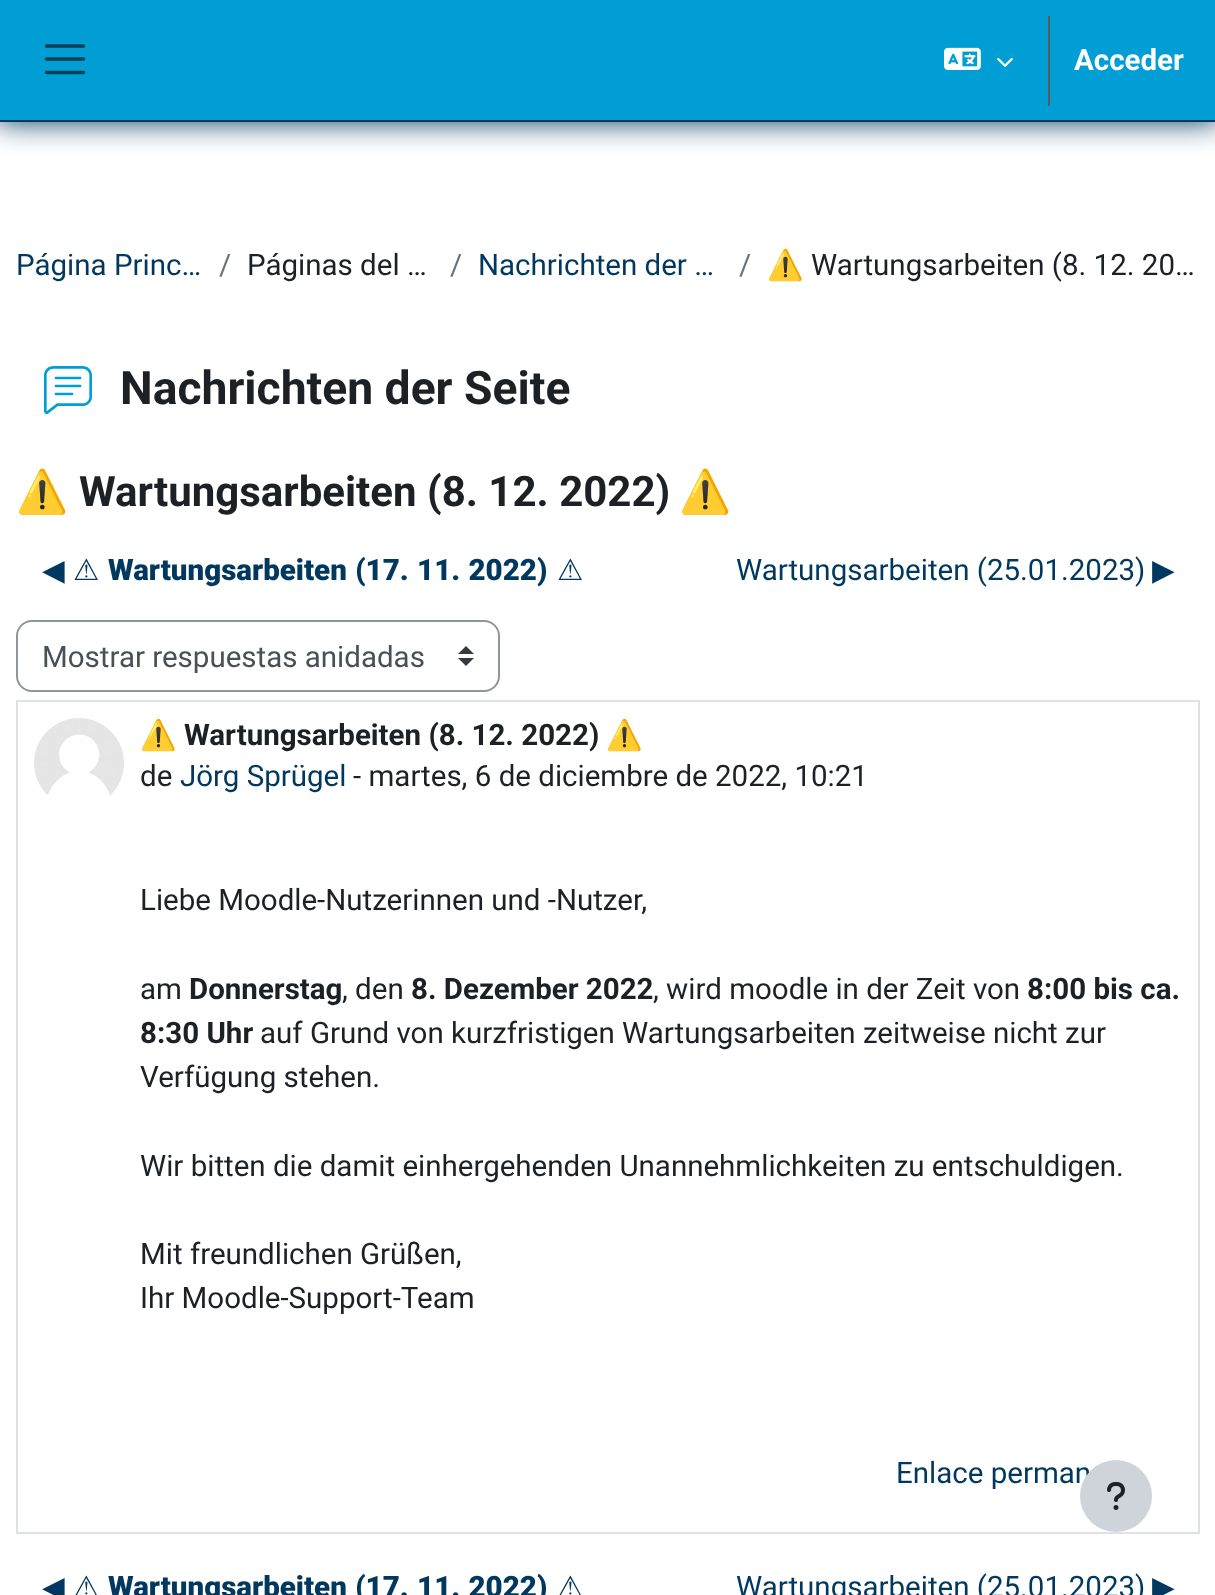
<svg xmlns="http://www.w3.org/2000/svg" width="1215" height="1595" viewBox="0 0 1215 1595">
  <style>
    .t1 { font: bold 29.5px Roboto; fill: #fff; }
    .t2 { font: 29.5px Roboto; fill: #00385f; }
    .t3 { font: 29.5px Roboto; fill: #6a737b; }
    .t4 { font: 29.5px Roboto; fill: #1d2125; }
    .t5 { font: 29.5px Noto Color Emoji; fill: #1d2125; }
    .t6 { font: bold 46.25px Roboto; fill: #1d2125; }
    .t7 { font: bold 42px Noto Color Emoji; fill: #1d2125; }
    .t8 { font: bold 42px Roboto; fill: #1d2125; }
    .t9 { font: 29.5px DejaVu Sans; fill: #00385f; }
    .t10 { font: 900 29.5px Roboto; fill: #00385f; }
    .t11 { font: 29.5px Roboto; fill: #495057; }
    .t12 { font: bold 29.5px Noto Color Emoji; fill: #1d2125; }
    .t13 { font: bold 29.5px Roboto; fill: #1d2125; }
  </style>
  <defs>
    <clipPath id="clip1"><rect x="768" y="242" width="432" height="44"/></clipPath>
  </defs>
  <rect width="100%" height="100%" fill="#fff"/>
  <rect x="-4" y="-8" width="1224" height="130" fill="#00385f" filter="blur(15px)"/>
  <rect x="0" y="0" width="1215" height="120" fill="#009ed4"/>
  <rect x="0" y="120" width="1215" height="2" fill="#00385f"/>
  <path d="M46.5 46H83.5M46.5 59H83.5M46.5 72.5H83.5" fill="none" stroke="#003f55" stroke-width="3.4" stroke-linecap="round"/>
  <image x="944" y="47" width="37" height="23" href="images/1.png"/>
  <image x="997" y="57" width="16" height="10" href="images/2.png"/>
  <rect x="1048" y="16" width="2" height="90" fill="#595a5c"/>
  <text x="1074" y="70" class="t1">Acceder</text>
  <text x="16" y="275" class="t2">Página Princ…</text>
  <text x="219" y="275" class="t3">/</text>
  <text x="247" y="275" class="t4">Páginas del …</text>
  <text x="450" y="275" class="t3">/</text>
  <text x="478" y="275" class="t2">Nachrichten der …</text>
  <text x="739" y="275" class="t3">/</text>
  <g clip-path="url(#clip1)">
    <text x="767" y="275" class="t5">⚠</text>
  </g>
  <text x="811" y="275" class="t4">Wartungsarbeiten (8. 12. 20…</text>
  <image x="44" y="366" width="48" height="48" href="images/3.png"/>
  <text x="120" y="404" class="t6">Nachrichten der Seite</text>
  <text x="16" y="506" class="t7">⚠</text>
  <text x="79" y="506" class="t8">Wartungsarbeiten (8. 12. 2022)</text>
  <text x="679" y="506" class="t7">⚠</text>
  <text x="42" y="580" class="t9">◀︎</text>
  <text x="73" y="580" class="t9">⚠</text>
  <text x="108" y="580" word-spacing="1" class="t10">Wartungsarbeiten (17. 11. 2022)</text>
  <text x="557" y="580" class="t9">⚠</text>
  <text x="736" y="580" class="t2">Wartungsarbeiten (25.01.2023)</text>
  <text x="1152" y="580" class="t9">▶︎</text>
  <path d="M466 646L458 654H474ZM466 666L458 658H474Z" fill="#343a40"/>
  <rect x="17" y="621" width="482" height="70" rx="15" fill="none" stroke="#8f959e" stroke-width="2"/>
  <text x="42" y="667" class="t11">Mostrar respuestas anidadas</text>
  <rect x="17" y="701" width="1182" height="832" fill="none" stroke="#dee2e6" stroke-width="2"/>
  <image x="34" y="718" width="90" height="78" href="images/4.png"/>
  <text x="140" y="745" class="t12">⚠</text>
  <text x="184" y="745" class="t13">Wartungsarbeiten (8. 12. 2022)</text>
  <text x="606" y="745" class="t12">⚠</text>
  <text x="140" y="786" class="t4">de</text>
  <text x="180" y="786" class="t2">Jörg Sprügel</text>
  <text x="353" y="786" class="t4">- martes, 6 de diciembre de 2022, 10:21</text>
  <text x="140" y="910" class="t4">Liebe Moodle-Nutzerinnen und -Nutzer,</text>
  <text x="140" y="999" class="t4">am</text>
  <text x="189" y="999" class="t13">Donnerstag</text>
  <text x="342" y="999" class="t4">, den</text>
  <text x="411" y="999" class="t13">8. Dezember 2022</text>
  <text x="653" y="999" class="t4">, wird moodle in der Zeit von</text>
  <text x="1027" y="999" class="t13">8:00 bis ca.</text>
  <text x="140" y="1043" class="t13">8:30 Uhr</text>
  <text x="260" y="1043" class="t4">auf Grund von kurzfristigen Wartungsarbeiten zeitweise nicht zur</text>
  <text x="140" y="1087" class="t4">Verfügung stehen.</text>
  <text x="140" y="1176" class="t4">Wir bitten die damit einhergehenden Unannehmlichkeiten zu entschuldigen.</text>
  <text x="140" y="1264" class="t4">Mit freundlichen Grüßen,</text>
  <text x="140" y="1308" class="t4">Ihr Moodle-Support-Team</text>
  <text x="896" y="1483" class="t2">Enlace perman</text>
  <text x="42" y="1597" class="t9">◀︎</text>
  <text x="73" y="1597" class="t9">⚠</text>
  <text x="108" y="1597" word-spacing="1" class="t10">Wartungsarbeiten (17. 11. 2022)</text>
  <text x="557" y="1597" class="t9">⚠</text>
  <text x="736" y="1597" class="t2">Wartungsarbeiten (25.01.2023)</text>
  <text x="1152" y="1597" class="t9">▶︎</text>
  <circle cx="1116" cy="1496" r="36" fill="#ced4da"/>
  <image x="1107" y="1482" width="18" height="28" href="images/5.png"/>
</svg>
